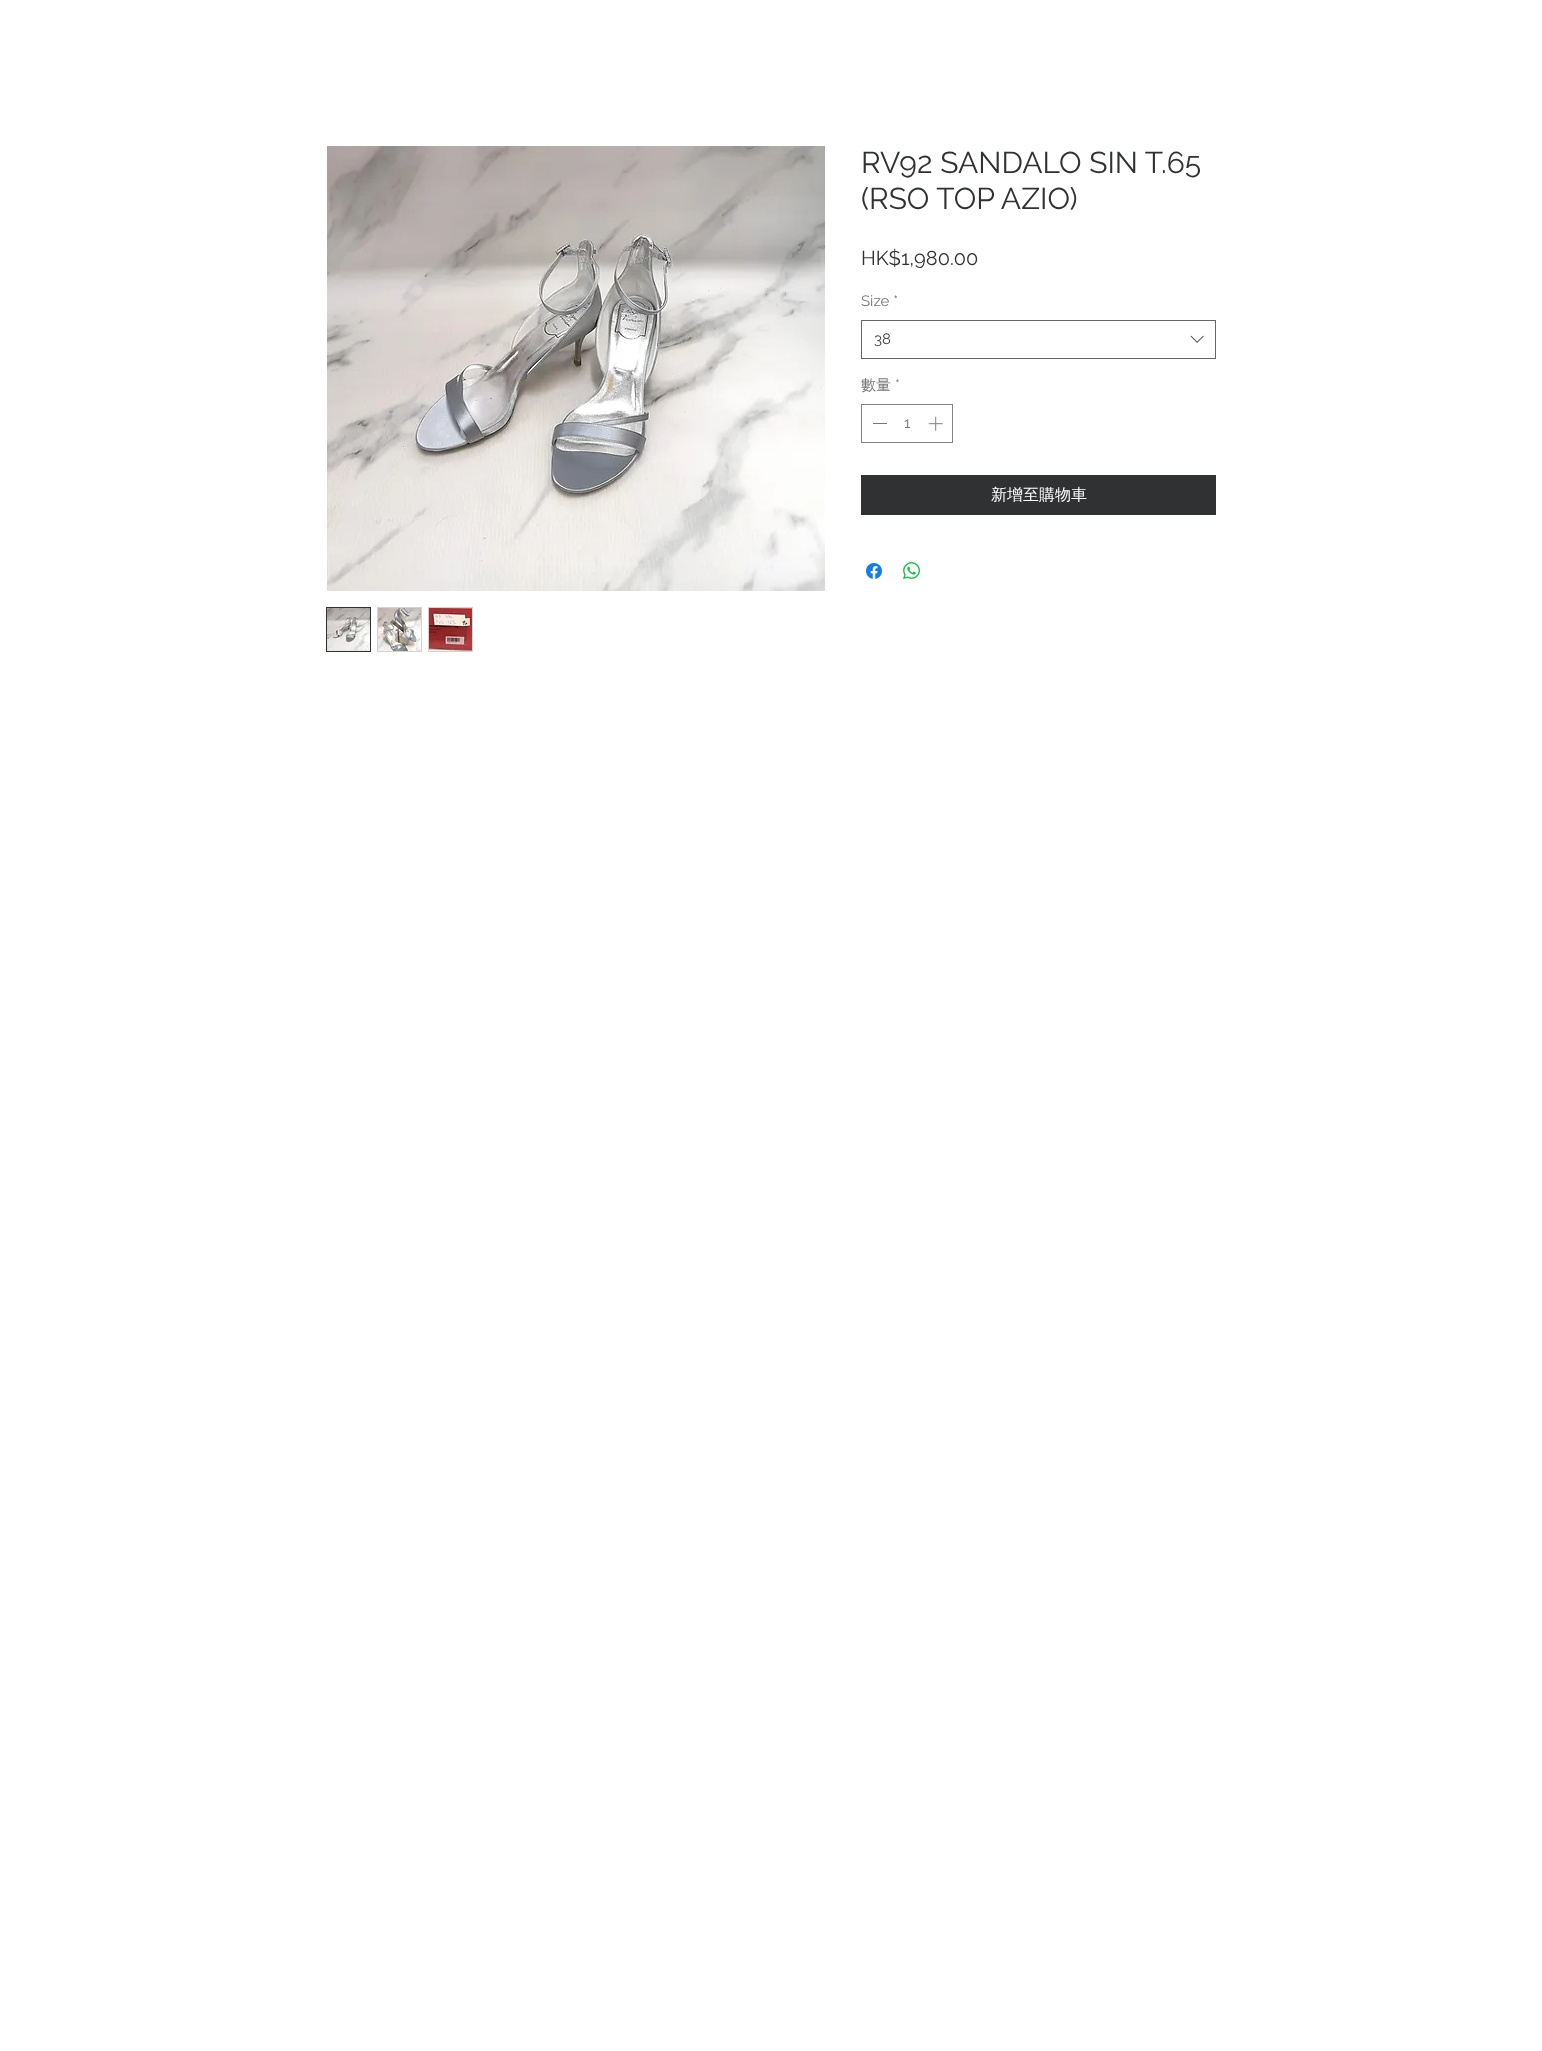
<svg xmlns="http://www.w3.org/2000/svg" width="1542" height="2051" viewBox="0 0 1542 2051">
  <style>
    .t1 { font: 30px Raleway; fill: #303132; }
    .t2 { font: 20px Raleway; fill: #303132; }
    .t3 { font: 15px Raleway; fill: #777; }
    .t4 { font: 15px Raleway; fill: #444; }
    .t5 { font: 500 15px WenQuanYi Zen Hei; fill: #777; }
    .t6 { font: 500 16px WenQuanYi Zen Hei; fill: #fff; }
  </style>
  <rect width="100%" height="100%" fill="#fff"/>
  <image x="327" y="146" width="498" height="445" href="images/1.png"/>
  <rect x="326.5" y="607.5" width="44" height="44" fill="none" stroke="#303132"/>
  <image x="327" y="608" width="43" height="43" href="images/2.png"/>
  <rect x="377.5" y="607.5" width="44" height="44" fill="none" stroke="#d3d3d3"/>
  <image x="378" y="608" width="43" height="43" href="images/3.png"/>
  <rect x="428.5" y="607.5" width="44" height="44" fill="none" stroke="#d3d3d3"/>
  <image x="429" y="608" width="43" height="43" href="images/4.png"/>
  <text x="861" y="173" class="t1">RV92 SANDALO SIN T.65</text>
  <text x="861" y="209" class="t1">(RSO TOP AZIO)</text>
  <text x="861" y="265" class="t2">HK$1,980.00</text>
  <text x="861" y="306" class="t3">Size *</text>
  <rect x="861.5" y="320.5" width="354" height="38" fill="none" stroke="#666"/>
  <text x="874" y="344" class="t4">38</text>
  <image x="1190" y="335" width="14" height="8" href="images/5.png"/>
  <text x="861" y="390" class="t5">數量</text>
  <text x="895" y="390" class="t3">*</text>
  <rect x="861.5" y="404.5" width="91" height="38" fill="none" stroke="#838384"/>
  <rect x="873" y="423" width="14" height="1" fill="#777"/>
  <text x="904" y="428" class="t3">1</text>
  <image x="928" y="416" width="15" height="15" href="images/6.png"/>
  <rect x="861" y="475" width="355" height="40" fill="#303132"/>
  <text x="991" y="500" class="t6">新增至購物車</text>
  <image x="866" y="563" width="16" height="16" href="images/7.png"/>
  <image x="903" y="562" width="17" height="17" href="images/8.png"/>
</svg>
